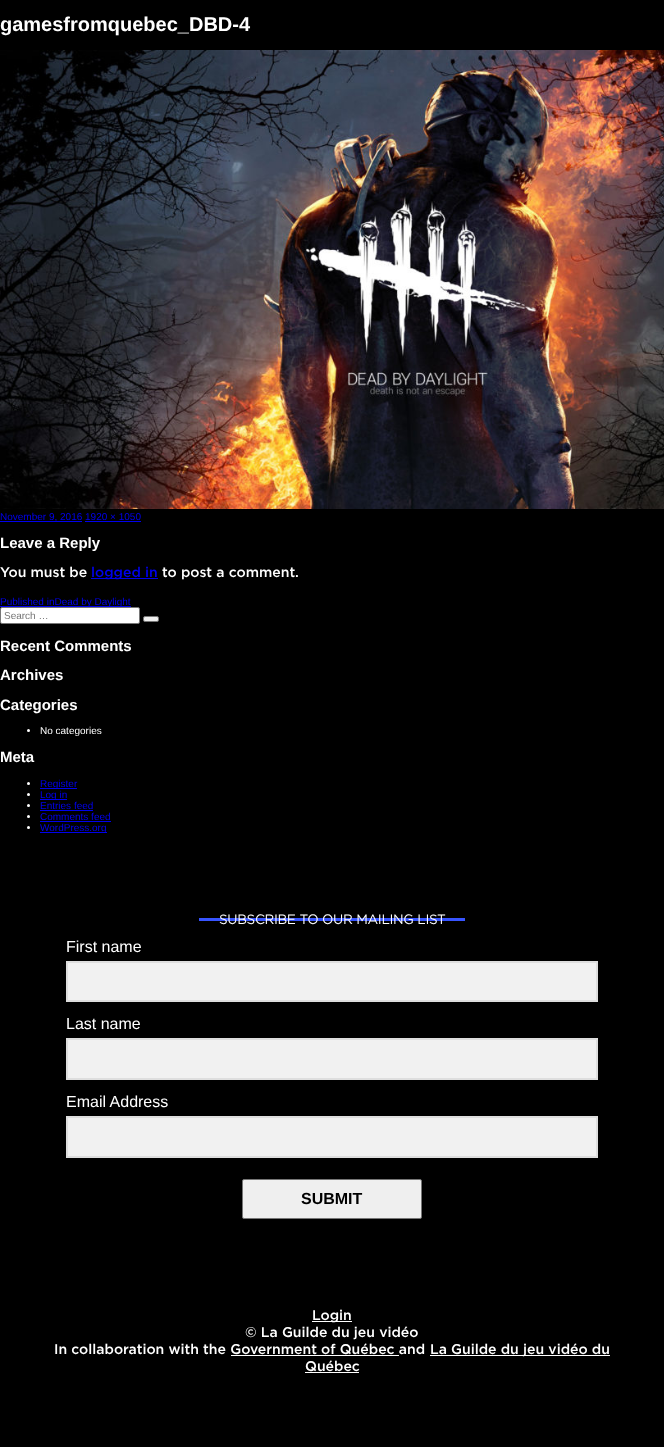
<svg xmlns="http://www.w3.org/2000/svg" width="664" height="1447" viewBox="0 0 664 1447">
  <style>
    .t1 { font: bold 20px Liberation Sans; fill: #fff; }
    .t2 { font: 10px Liberation Sans; fill: #00e; }
    .t3 { font: bold 15px Liberation Sans; fill: #fff; }
    .t4 { font: 500 14px Gotham; fill: #fff; }
    .t5 { font: 500 14px Gotham; fill: #00e; }
    .t6 { font: 10px Liberation Sans; fill: #757575; }
    .t7 { font: 10px Liberation Sans; fill: #fff; }
    .t8 { font: bold 13px Gotham; fill: #fff; }
    .t9 { font: 16px Liberation Sans; fill: #fff; }
    .t10 { font: bold 16px Liberation Sans; fill: #000; }
  </style>
  <rect width="100%" height="100%" fill="#000"/>
  <text x="0" y="31" class="t1">gamesfromquebec_DBD-4</text>
  <image x="0" y="50" width="664" height="459" href="images/1.png"/>
  <rect x="0" y="521" width="82" height="1" fill="#00e"/>
  <text x="0" y="520" class="t2">November 9, 2016 1920 × 1050</text>
  <rect x="85" y="521" width="56" height="1" fill="#00e"/>
  <text x="0" y="548" class="t3">Leave a Reply</text>
  <text x="0" y="577" class="t4">You must be</text>
  <rect x="91" y="578" width="67" height="1" fill="#00e"/>
  <text x="91" y="577" class="t5">logged in</text>
  <text x="162" y="577" class="t4">to post a comment.</text>
  <rect x="0" y="606" width="131" height="1" fill="#00e"/>
  <text x="0" y="605" class="t2">Published inDead by Daylight</text>
  <rect x="0.5" y="607.5" width="139" height="16" rx="1.5" fill="#fff" stroke="#767676"/>
  <text x="4" y="619" class="t6">Search …</text>
  <rect x="143.5" y="616.5" width="15" height="5" rx="1.5" fill="#efefef" stroke="#767676"/>
  <text x="0" y="651" class="t3">Recent Comments</text>
  <text x="0" y="680" class="t3">Archives</text>
  <text x="0" y="710" class="t3">Categories</text>
  <circle cx="28.5" cy="730.5" r="1.5" fill="#fff"/>
  <text x="40" y="734" class="t7">No categories</text>
  <text x="0" y="762" class="t3">Meta</text>
  <circle cx="28.5" cy="783.5" r="1.5" fill="#fff"/>
  <rect x="40" y="788" width="37" height="1" fill="#00e"/>
  <text x="40" y="787" class="t2">Register</text>
  <circle cx="28.5" cy="794.5" r="1.5" fill="#fff"/>
  <rect x="40" y="799" width="27" height="1" fill="#00e"/>
  <text x="40" y="798" class="t2">Log in</text>
  <circle cx="28.5" cy="805.5" r="1.5" fill="#fff"/>
  <text x="40" y="809" class="t2">Entries feed</text>
  <rect x="40" y="810" width="53" height="1" fill="#00e"/>
  <circle cx="28.5" cy="816.5" r="1.5" fill="#fff"/>
  <text x="40" y="820" class="t2">Comments feed</text>
  <rect x="40" y="821" width="71" height="1" fill="#00e"/>
  <circle cx="28.5" cy="827.5" r="1.5" fill="#fff"/>
  <rect x="40" y="832" width="67" height="1" fill="#00e"/>
  <text x="40" y="831" class="t2">WordPress.org</text>
  <rect x="199" y="918" width="266" height="3" fill="#3754ff"/>
  <text x="219" y="924" class="t8">SUBSCRIBE TO OUR MAILING LIST</text>
  <text x="66" y="952" class="t9">First name</text>
  <rect x="67" y="962" width="530" height="39" fill="#f1f1f1" stroke="#dedede" stroke-width="2"/>
  <text x="66" y="1029" class="t9">Last name</text>
  <rect x="67" y="1039" width="530" height="40" fill="#f1f1f1" stroke="#dedede" stroke-width="2"/>
  <text x="66" y="1107" class="t9">Email Address</text>
  <rect x="67" y="1117" width="530" height="40" fill="#f1f1f1" stroke="#dedede" stroke-width="2"/>
  <rect x="242.5" y="1179.5" width="179" height="39" rx="1.5" fill="#efefef" stroke="#767676"/>
  <text x="301" y="1204" class="t10">SUBMIT</text>
  <rect x="312" y="1321" width="40" height="1" fill="#fff"/>
  <text x="312" y="1320" class="t4">Login</text>
  <text x="245" y="1337" class="t4">© La Guilde du jeu vidéo</text>
  <text x="54" y="1354" class="t4">In collaboration with the Government of Québec and</text>
  <rect x="430" y="1355" width="180" height="1" fill="#fff"/>
  <text x="430" y="1354" class="t4">La Guilde du jeu vidéo du</text>
  <rect x="231" y="1355" width="168" height="1" fill="#fff"/>
  <text x="305" y="1371" class="t4">Québec</text>
  <rect x="305" y="1372" width="54" height="1" fill="#fff"/>
</svg>
